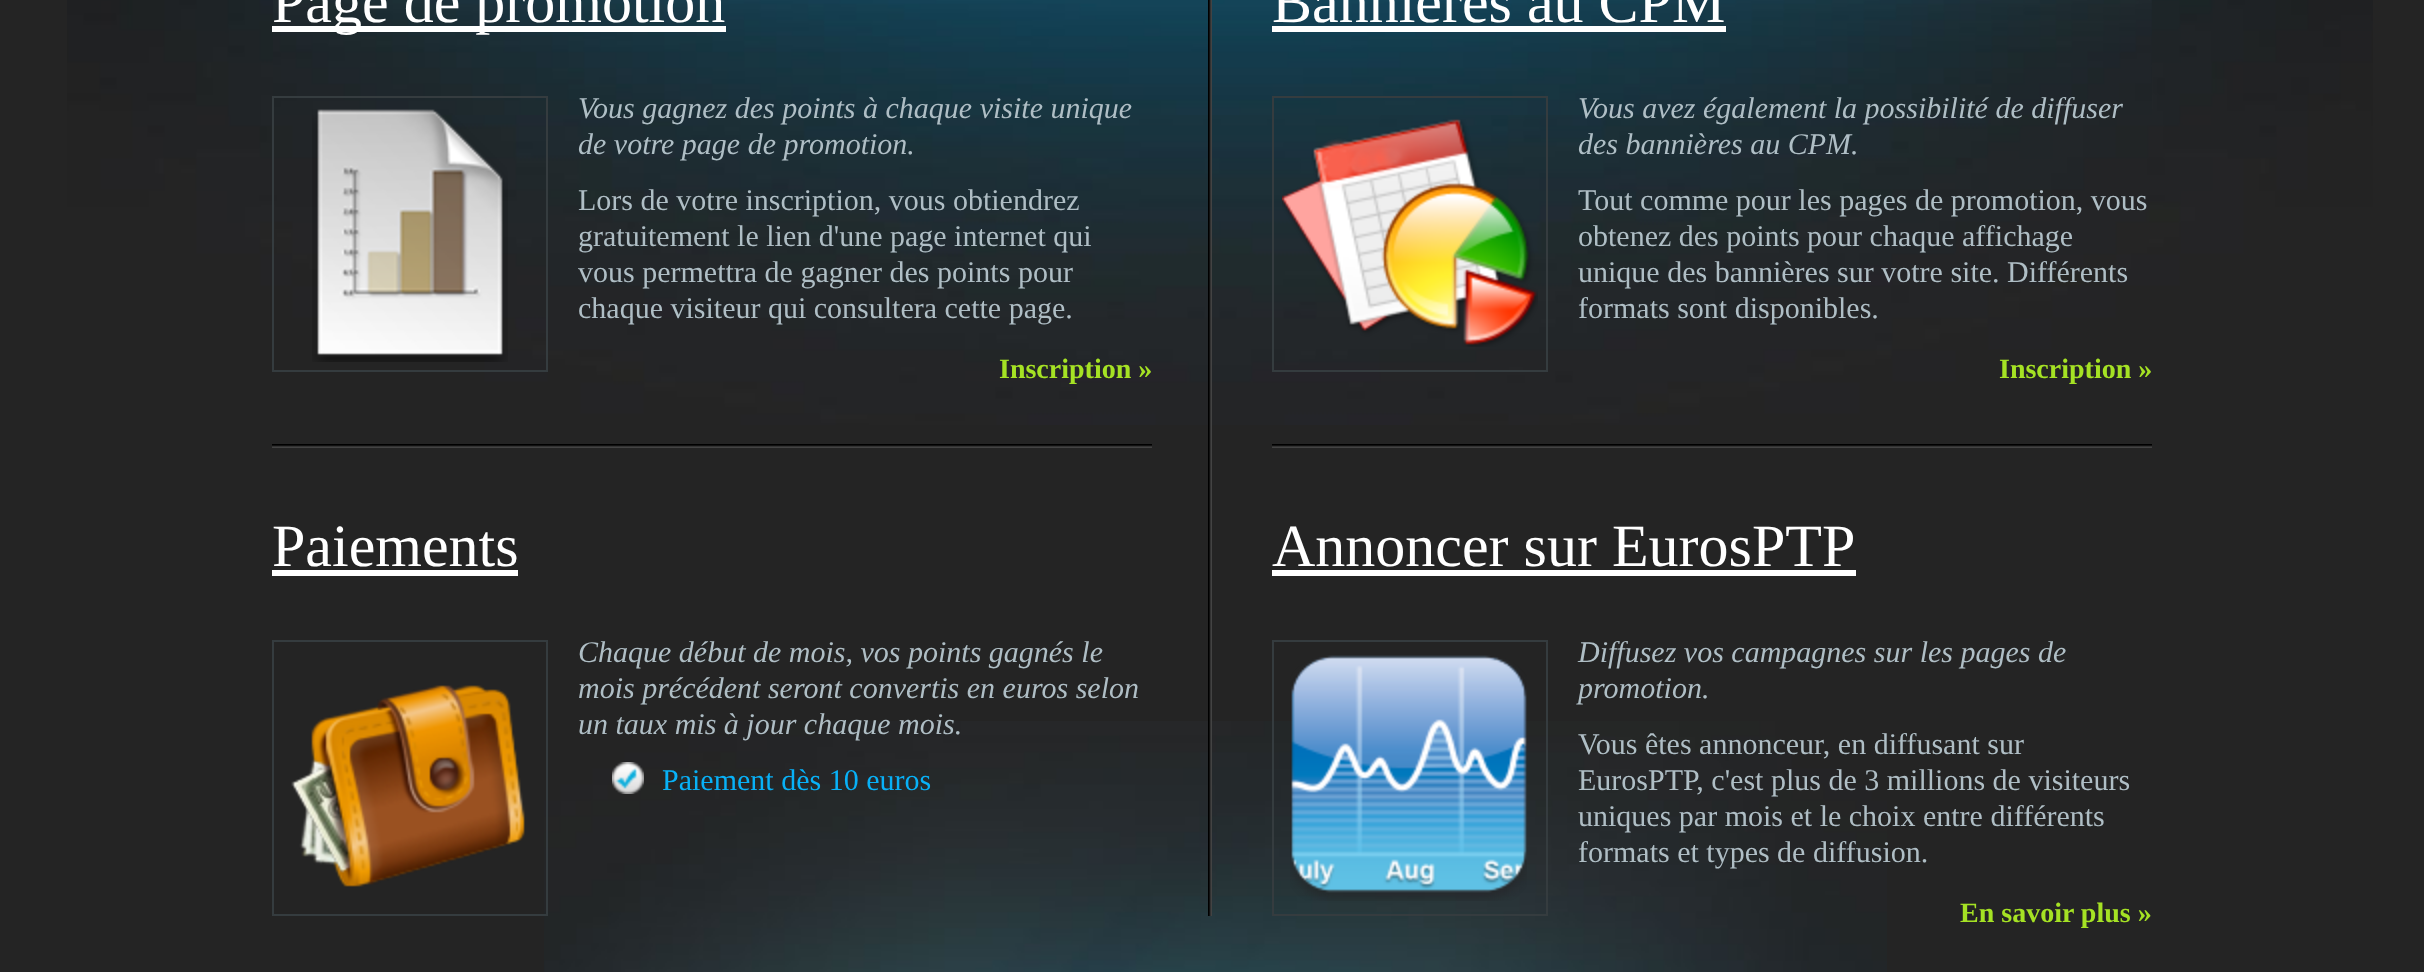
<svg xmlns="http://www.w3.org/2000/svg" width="2424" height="972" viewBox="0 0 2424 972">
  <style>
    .t1 { font: 60px Liberation Serif; fill: #fff; }
    .t2 { font: italic 30px Liberation Serif; fill: #afbec5; }
    .t3 { font: 30px Liberation Serif; fill: #afbec5; }
    .t4 { font: bold 28px Liberation Serif; fill: #a5e224; }
    .t5 { font: 30px Liberation Serif; fill: #08b1f7; }
  </style>
  <rect width="100%" height="100%" fill="#242424"/>
  <image x="67" y="0" width="2306" height="425" href="images/1.png"/>
  <image x="544" y="721" width="1343" height="251" href="images/2.png"/>
  <image x="273" y="0" width="1879" height="115" href="images/3.png"/>
  <image x="1208" y="0" width="4" height="916" href="images/4.png"/>
  <image x="272" y="444" width="880" height="4" href="images/5.png"/>
  <rect x="272" y="26" width="454" height="6" fill="#fff"/>
  <text x="272" y="22" class="t1">Page de promotion</text>
  <rect x="273" y="97" width="274" height="274" fill="none" stroke="#353c3f" stroke-width="2"/>
  <image x="312" y="109" width="196" height="253" href="images/6.png"/>
  <text x="578" y="118" class="t2">Vous gagnez des points à chaque visite unique</text>
  <text x="578" y="154" class="t2">de votre page de promotion.</text>
  <text x="578" y="210" class="t3">Lors de votre inscription, vous obtiendrez</text>
  <text x="578" y="246" class="t3">gratuitement le lien d'une page internet qui</text>
  <text x="578" y="282" class="t3">vous permettra de gagner des points pour</text>
  <text x="578" y="318" class="t3">chaque visiteur qui consultera cette page.</text>
  <text x="999" y="378" class="t4">Inscription »</text>
  <text x="272" y="566" class="t1">Paiements</text>
  <rect x="272" y="570" width="246" height="6" fill="#fff"/>
  <rect x="273" y="641" width="274" height="274" fill="none" stroke="#353c3f" stroke-width="2"/>
  <image x="291" y="685" width="234" height="202" href="images/7.png"/>
  <text x="578" y="662" class="t2">Chaque début de mois, vos points gagnés le</text>
  <text x="578" y="698" class="t2">mois précédent seront convertis en euros selon</text>
  <text x="578" y="734" class="t2">un taux mis à jour chaque mois.</text>
  <image x="612" y="762" width="32" height="32" href="images/8.png"/>
  <text x="662" y="790" class="t5">Paiement dès 10 euros</text>
  <image x="1272" y="444" width="880" height="4" href="images/5.png"/>
  <text x="1272" y="22" class="t1">Bannières au CPM</text>
  <rect x="1272" y="26" width="454" height="6" fill="#fff"/>
  <rect x="1273" y="97" width="274" height="274" fill="none" stroke="#353c3f" stroke-width="2"/>
  <image x="1282" y="119" width="256" height="228" href="images/9.png"/>
  <text x="1578" y="118" class="t2">Vous avez également la possibilité de diffuser</text>
  <text x="1578" y="154" class="t2">des bannières au CPM.</text>
  <text x="1578" y="210" class="t3">Tout comme pour les pages de promotion, vous</text>
  <text x="1578" y="246" class="t3">obtenez des points pour chaque affichage</text>
  <text x="1578" y="282" class="t3">unique des bannières sur votre site. Différents</text>
  <text x="1578" y="318" class="t3">formats sont disponibles.</text>
  <text x="1999" y="378" class="t4">Inscription »</text>
  <text x="1272" y="566" class="t1">Annoncer sur EurosPTP</text>
  <rect x="1272" y="570" width="584" height="6" fill="#fff"/>
  <rect x="1273" y="641" width="274" height="274" fill="none" stroke="#353c3f" stroke-width="2"/>
  <image x="1290" y="655" width="237" height="246" href="images/10.png"/>
  <text x="1578" y="662" class="t2">Diffusez vos campagnes sur les pages de</text>
  <text x="1578" y="698" class="t2">promotion.</text>
  <text x="1578" y="754" class="t3">Vous êtes annonceur, en diffusant sur</text>
  <text x="1578" y="790" class="t3">EurosPTP, c'est plus de 3 millions de visiteurs</text>
  <text x="1578" y="826" class="t3">uniques par mois et le choix entre différents</text>
  <text x="1578" y="862" class="t3">formats et types de diffusion.</text>
  <text x="1960" y="922" class="t4">En savoir plus »</text>
</svg>
